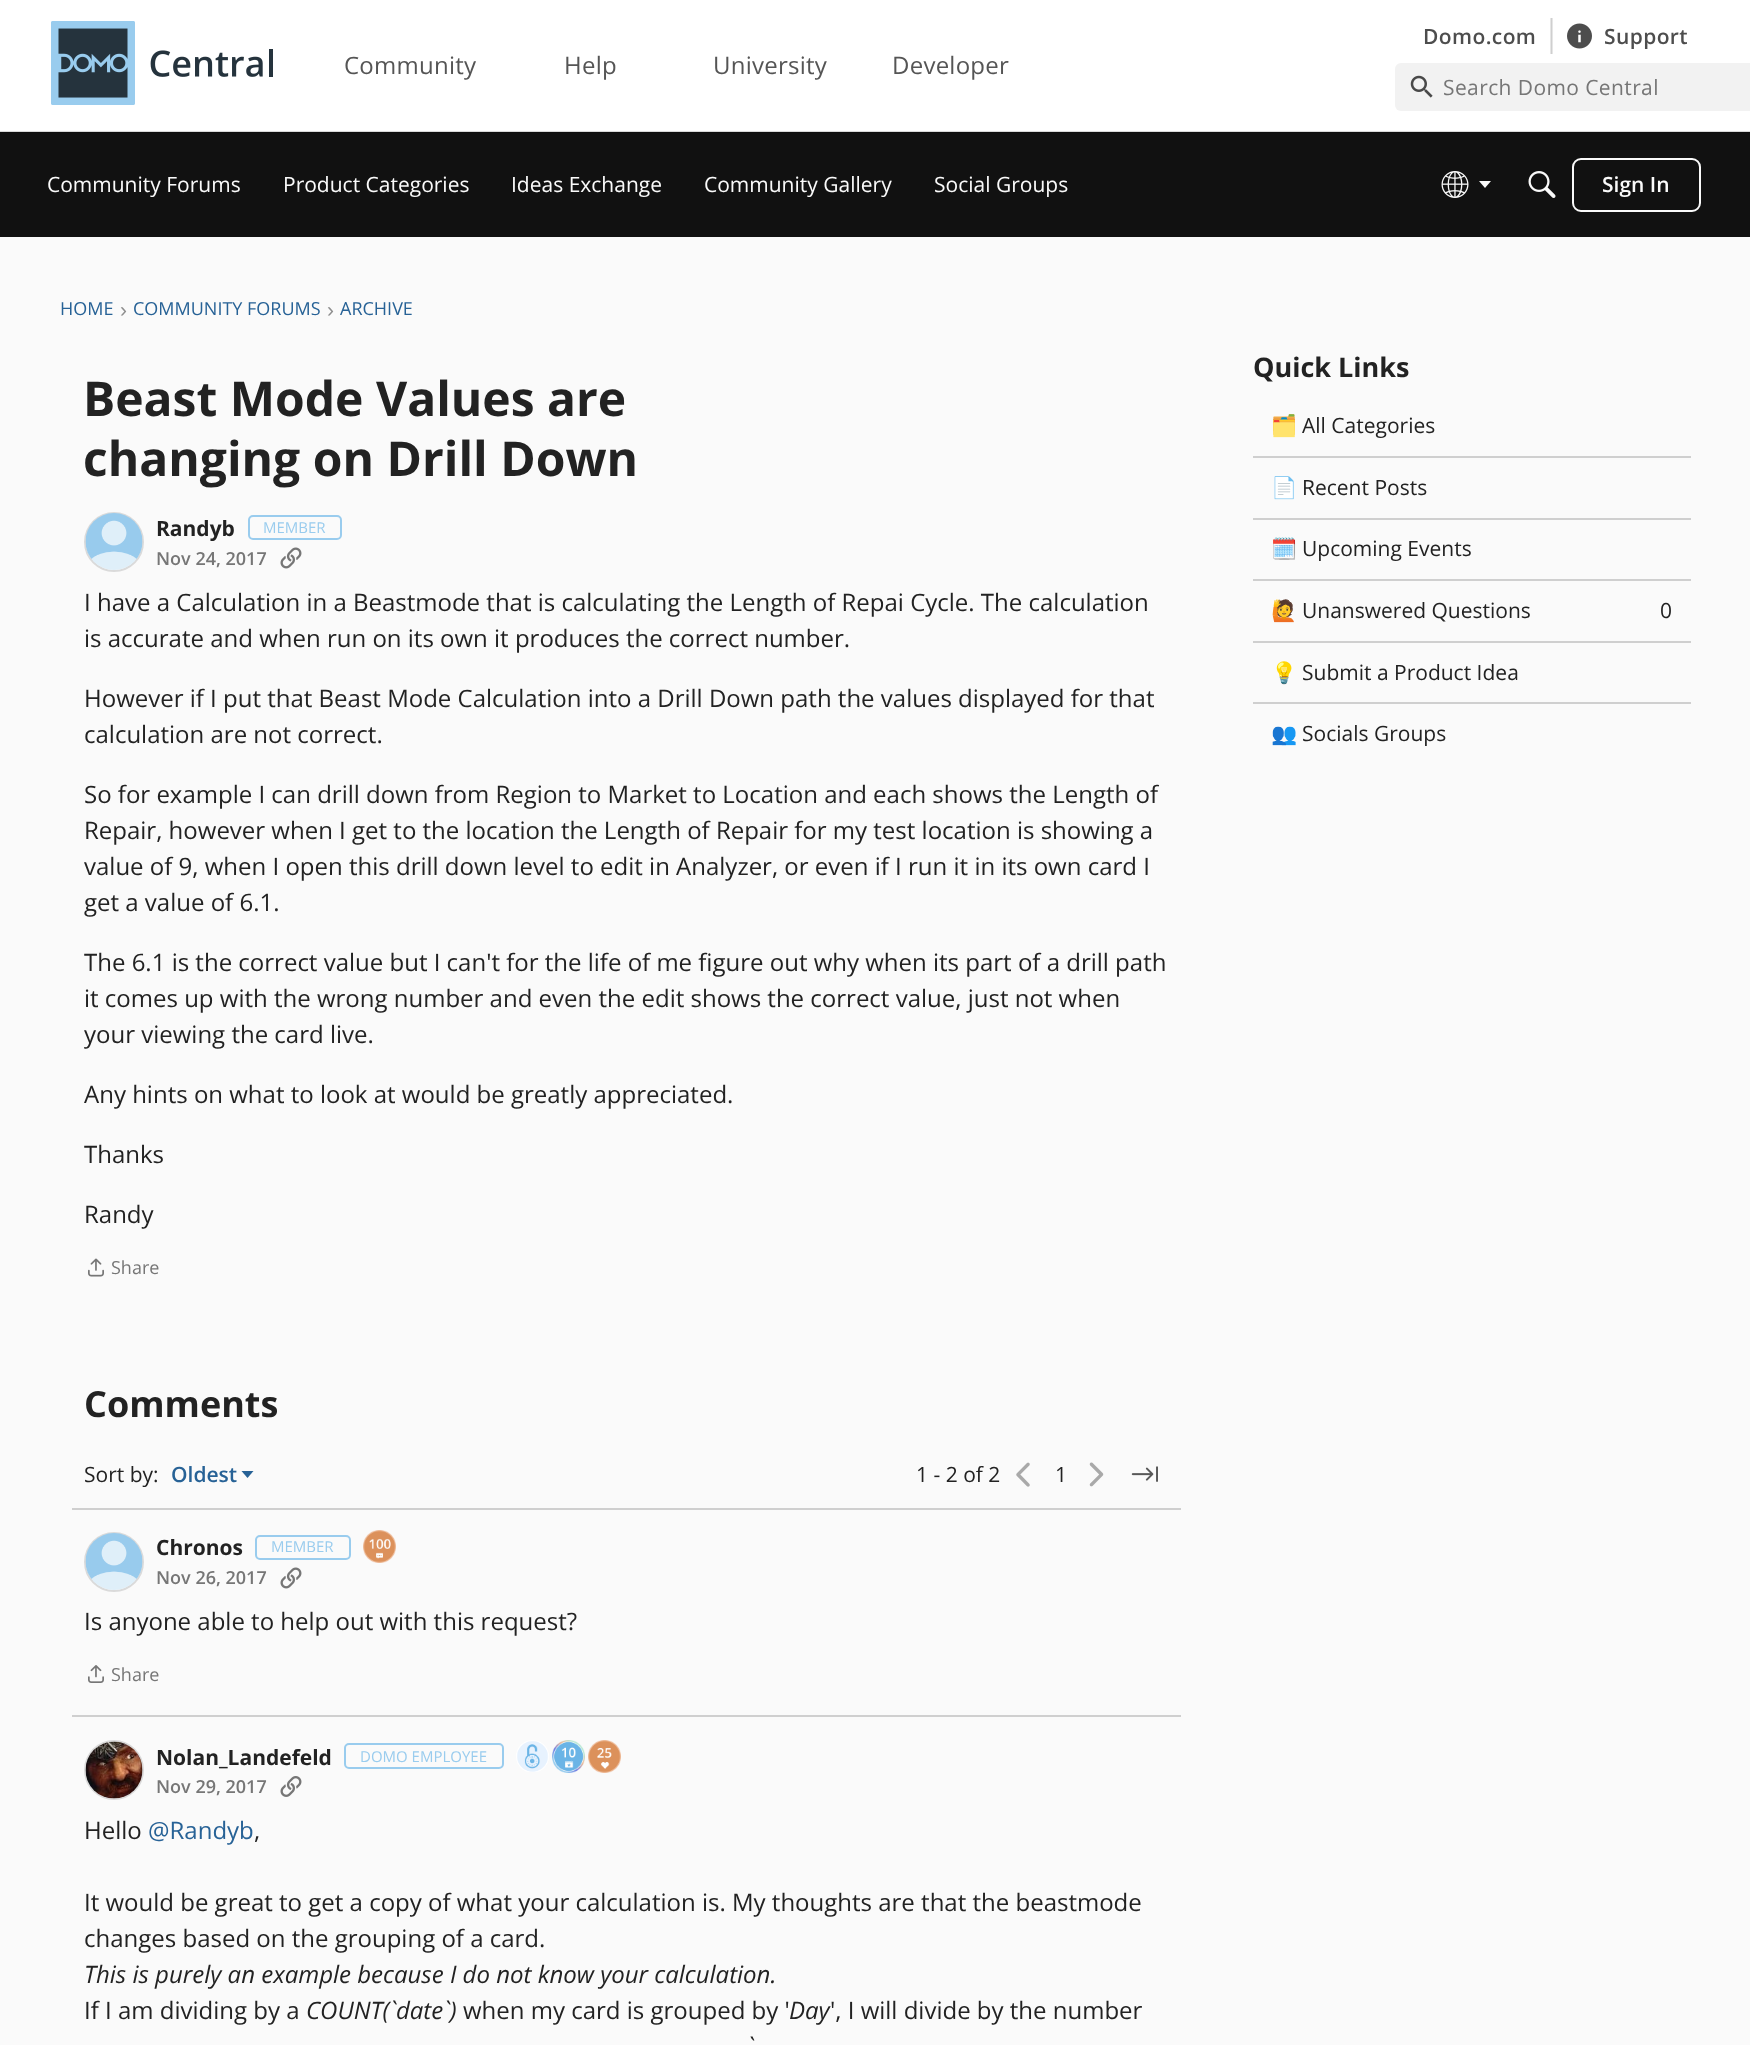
<svg xmlns="http://www.w3.org/2000/svg" width="1750" height="2045" viewBox="0 0 1750 2045">
  <style>
    .t1 { font: 600 21px Open Sans; letter-spacing: 0.4px; fill: #4d4d4d; }
    .t2 { font: 24px Open Sans; letter-spacing: 0.25px; fill: #555; }
    .t3 { font: 21px Open Sans; letter-spacing: 0.4px; fill: #767676; }
    .t4 { font: 21px Open Sans; fill: #fafafa; }
    .t5 { font: 600 21px Open Sans; fill: #fafafa; }
    .t6 { font: 18px Open Sans; fill: #276296; }
    .t7 { font: 21px Liberation Sans; fill: #8e8e8e; }
    .t8 { font: bold 48px Open Sans; fill: #222; }
    .t9 { font: bold 21px Open Sans; fill: #222; }
    .t10 { font: 15px Open Sans; fill: #9ce; }
    .t11 { font: 600 18px Open Sans; fill: #767676; }
    .t12 { font: 24px Open Sans; fill: #222; }
    .t13 { font: 18px Open Sans; fill: #767676; }
    .t14 { font: bold 36px Open Sans; fill: #222; }
    .t15 { font: 21px Open Sans; fill: #222; }
    .t16 { font: 600 21px Open Sans; fill: #276296; }
    .t17 { font: 24px Open Sans; fill: #276296; }
    .t18 { font: italic 24px Open Sans; fill: #222; }
    .t19 { font: bold 27px Open Sans; fill: #222; }
    .t20 { font: 21px Noto Color Emoji; fill: #222; }
  </style>
  <rect width="100%" height="100%" fill="#fafafa"/>
  <rect x="0" y="0" width="1750" height="131" fill="#fff"/>
  <rect x="1552" y="18" width="1" height="36" fill="#e6e6e6"/>
  <rect x="0" y="131" width="1750" height="1" fill="#d9d9d9"/>
  <image x="51" y="21" width="222" height="84" href="images/1.png"/>
  <text x="1423" y="44" class="t1">Domo.com</text>
  <rect x="1550" y="18" width="1" height="36" fill="#e6e6e6"/>
  <rect x="1551" y="18" width="1" height="36" fill="#cfcfcf"/>
  <image x="1567" y="23" width="25" height="26" href="images/2.png"/>
  <text x="1604" y="44" class="t1">Support</text>
  <text x="344" y="74" class="t2">Community</text>
  <text x="564" y="74" class="t2">Help</text>
  <text x="713" y="74" class="t2">University</text>
  <text x="892" y="74" class="t2">Developer</text>
  <rect x="1395" y="63" width="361" height="48" rx="6" fill="#f2f2f2"/>
  <image x="1410" y="75" width="23" height="23" href="images/3.png"/>
  <text x="1443" y="95" class="t3">Search Domo Central</text>
  <rect x="0" y="133" width="1750" height="104" fill="#111"/>
  <rect x="0" y="132" width="1750" height="1" fill="#0e0e0e"/>
  <text x="47" y="192" class="t4">Community Forums</text>
  <text x="283" y="192" class="t4">Product Categories</text>
  <text x="511" y="192" class="t4">Ideas Exchange</text>
  <text x="704" y="192" class="t4">Community Gallery</text>
  <text x="934" y="192" class="t4">Social Groups</text>
  <image x="1441" y="171" width="28" height="27" href="images/4.png"/>
  <path d="M1479 181H1491L1485 188Z" fill="#fafafa"/>
  <image x="1528" y="171" width="28" height="27" href="images/5.png"/>
  <rect x="1573" y="159" width="127" height="52" rx="8" fill="none" stroke="#fafafa" stroke-width="2"/>
  <text x="1602" y="192" class="t5">Sign In</text>
  <text x="60" y="315" class="t6">HOME</text>
  <text x="120" y="317" class="t7">›</text>
  <text x="133" y="315" class="t6">COMMUNITY FORUMS</text>
  <text x="327" y="317" class="t7">›</text>
  <text x="340" y="315" class="t6">ARCHIVE</text>
  <text x="83" y="416" class="t8">Beast Mode Values are</text>
  <text x="83" y="476" class="t8">changing on Drill Down</text>
  <circle cx="114" cy="542" r="29" fill="none" stroke="#dadada" stroke-width="2"/>
  <image x="85" y="513" width="58" height="57" href="images/6.png"/>
  <text x="156" y="536" class="t9">Randyb</text>
  <rect x="249" y="516" width="92" height="23" rx="4" fill="none" stroke="#9ce" stroke-width="2"/>
  <text x="263" y="533" class="t10">MEMBER</text>
  <text x="156" y="565" class="t11">Nov 24, 2017</text>
  <image x="280" y="547" width="22" height="22" href="images/7.png"/>
  <text x="84" y="611" class="t12">I have a Calculation in a Beastmode that is calculating the Length of Repai Cycle. The calculation</text>
  <text x="84" y="647" class="t12">is accurate and when run on its own it produces the correct number.</text>
  <text x="84" y="707" class="t12">However if I put that Beast Mode Calculation into a Drill Down path the values displayed for that</text>
  <text x="84" y="743" class="t12">calculation are not correct.</text>
  <text x="84" y="803" class="t12">So for example I can drill down from Region to Market to Location and each shows the Length of</text>
  <text x="84" y="839" class="t12">Repair, however when I get to the location the Length of Repair for my test location is showing a</text>
  <text x="84" y="875" class="t12">value of 9, when I open this drill down level to edit in Analyzer, or even if I run it in its own card I</text>
  <text x="84" y="911" class="t12">get a value of 6.1.</text>
  <text x="84" y="971" class="t12">The 6.1 is the correct value but I can't for the life of me figure out why when its part of a drill path</text>
  <text x="84" y="1007" class="t12">it comes up with the wrong number and even the edit shows the correct value, just not when</text>
  <text x="84" y="1043" class="t12">your viewing the card live.</text>
  <text x="84" y="1103" class="t12">Any hints on what to look at would be greatly appreciated.</text>
  <text x="84" y="1163" class="t12">Thanks</text>
  <text x="84" y="1223" class="t12">Randy</text>
  <image x="88" y="1258" width="16" height="19" href="images/8.png"/>
  <text x="111" y="1274" class="t13">Share</text>
  <text x="84" y="1417" class="t14">Comments</text>
  <text x="84" y="1482" class="t15">Sort by:</text>
  <text x="171" y="1482" class="t16">Oldest</text>
  <path d="M241.5 1471H253.5L247.5 1478Z" fill="#276296"/>
  <text x="916" y="1482" class="t15">1 - 2 of 2</text>
  <image x="1016" y="1462" width="14" height="25" href="images/9.png"/>
  <text x="1055" y="1482" class="t15">1</text>
  <image x="1089" y="1462" width="15" height="25" href="images/10.png"/>
  <image x="1131" y="1466" width="27" height="16" href="images/11.png"/>
  <rect x="72" y="1508" width="1109" height="2" fill="#cfcfcf"/>
  <circle cx="114" cy="1562" r="29" fill="none" stroke="#dadada" stroke-width="2"/>
  <image x="85" y="1533" width="58" height="57" href="images/6.png"/>
  <text x="156" y="1555" class="t9">Chronos</text>
  <rect x="256" y="1536" width="94" height="23" rx="4" fill="none" stroke="#9ce" stroke-width="2"/>
  <text x="271" y="1552" class="t10">MEMBER</text>
  <image x="363" y="1530" width="33" height="33" href="images/12.png"/>
  <text x="156" y="1584" class="t11">Nov 26, 2017</text>
  <image x="280" y="1567" width="22" height="22" href="images/7.png"/>
  <text x="84" y="1630" class="t12">Is anyone able to help out with this request?</text>
  <image x="88" y="1665" width="16" height="18" href="images/13.png"/>
  <text x="111" y="1681" class="t13">Share</text>
  <rect x="72" y="1715" width="1109" height="2" fill="#cfcfcf"/>
  <circle cx="114" cy="1770" r="29" fill="none" stroke="#dadada" stroke-width="2"/>
  <image x="85" y="1741" width="58" height="58" href="images/14.png"/>
  <text x="156" y="1765" class="t9">Nolan_Landefeld</text>
  <rect x="345" y="1744" width="158" height="24" rx="4" fill="none" stroke="#9ce" stroke-width="2"/>
  <text x="360" y="1762" class="t10">DOMO EMPLOYEE</text>
  <image x="516" y="1740" width="33" height="32" href="images/15.png"/>
  <image x="552" y="1740" width="33" height="33" href="images/16.png"/>
  <image x="588" y="1740" width="33" height="33" href="images/17.png"/>
  <text x="156" y="1793" class="t11">Nov 29, 2017</text>
  <image x="280" y="1776" width="22" height="21" href="images/18.png"/>
  <text x="84" y="1839" class="t12">Hello</text>
  <text x="148" y="1839" class="t17">@Randyb</text>
  <text x="254" y="1839" class="t12">,</text>
  <text x="84" y="1911" class="t12">It would be great to get a copy of what your calculation is. My thoughts are that the beastmode</text>
  <text x="84" y="1947" class="t12">changes based on the grouping of a card.</text>
  <text x="84" y="1983" class="t18">This is purely an example because I do not know your calculation.</text>
  <text x="84" y="2019" class="t12">If I am dividing by a</text>
  <text x="306" y="2019" class="t18">COUNT(`date`)</text>
  <text x="463" y="2019" class="t12">when my card is grouped by '</text>
  <text x="789" y="2019" class="t18">Day</text>
  <text x="830" y="2019" class="t12">', I will divide by the number</text>
  <text x="747" y="2055" class="t18">`</text>
  <text x="1253" y="377" class="t19">Quick Links</text>
  <rect x="1253" y="456" width="438" height="2" fill="#cfcfcf"/>
  <text x="1271" y="433" class="t20">🗂️</text>
  <text x="1302" y="433" class="t15">All Categories</text>
  <rect x="1253" y="518" width="438" height="2" fill="#cfcfcf"/>
  <text x="1271" y="495" class="t20">📄</text>
  <text x="1302" y="495" class="t15">Recent Posts</text>
  <rect x="1253" y="579" width="438" height="2" fill="#cfcfcf"/>
  <text x="1271" y="556" class="t20">🗓️</text>
  <text x="1302" y="556" class="t15">Upcoming Events</text>
  <rect x="1253" y="641" width="438" height="2" fill="#cfcfcf"/>
  <text x="1271" y="618" class="t20">🙋</text>
  <text x="1302" y="618" class="t15">Unanswered Questions</text>
  <text x="1660" y="618" class="t15">0</text>
  <rect x="1253" y="702" width="438" height="2" fill="#cfcfcf"/>
  <text x="1271" y="680" class="t20">💡</text>
  <text x="1302" y="680" class="t15">Submit a Product Idea</text>
  <text x="1271" y="741" class="t20">👥</text>
  <text x="1302" y="741" class="t15">Socials Groups</text>
</svg>
